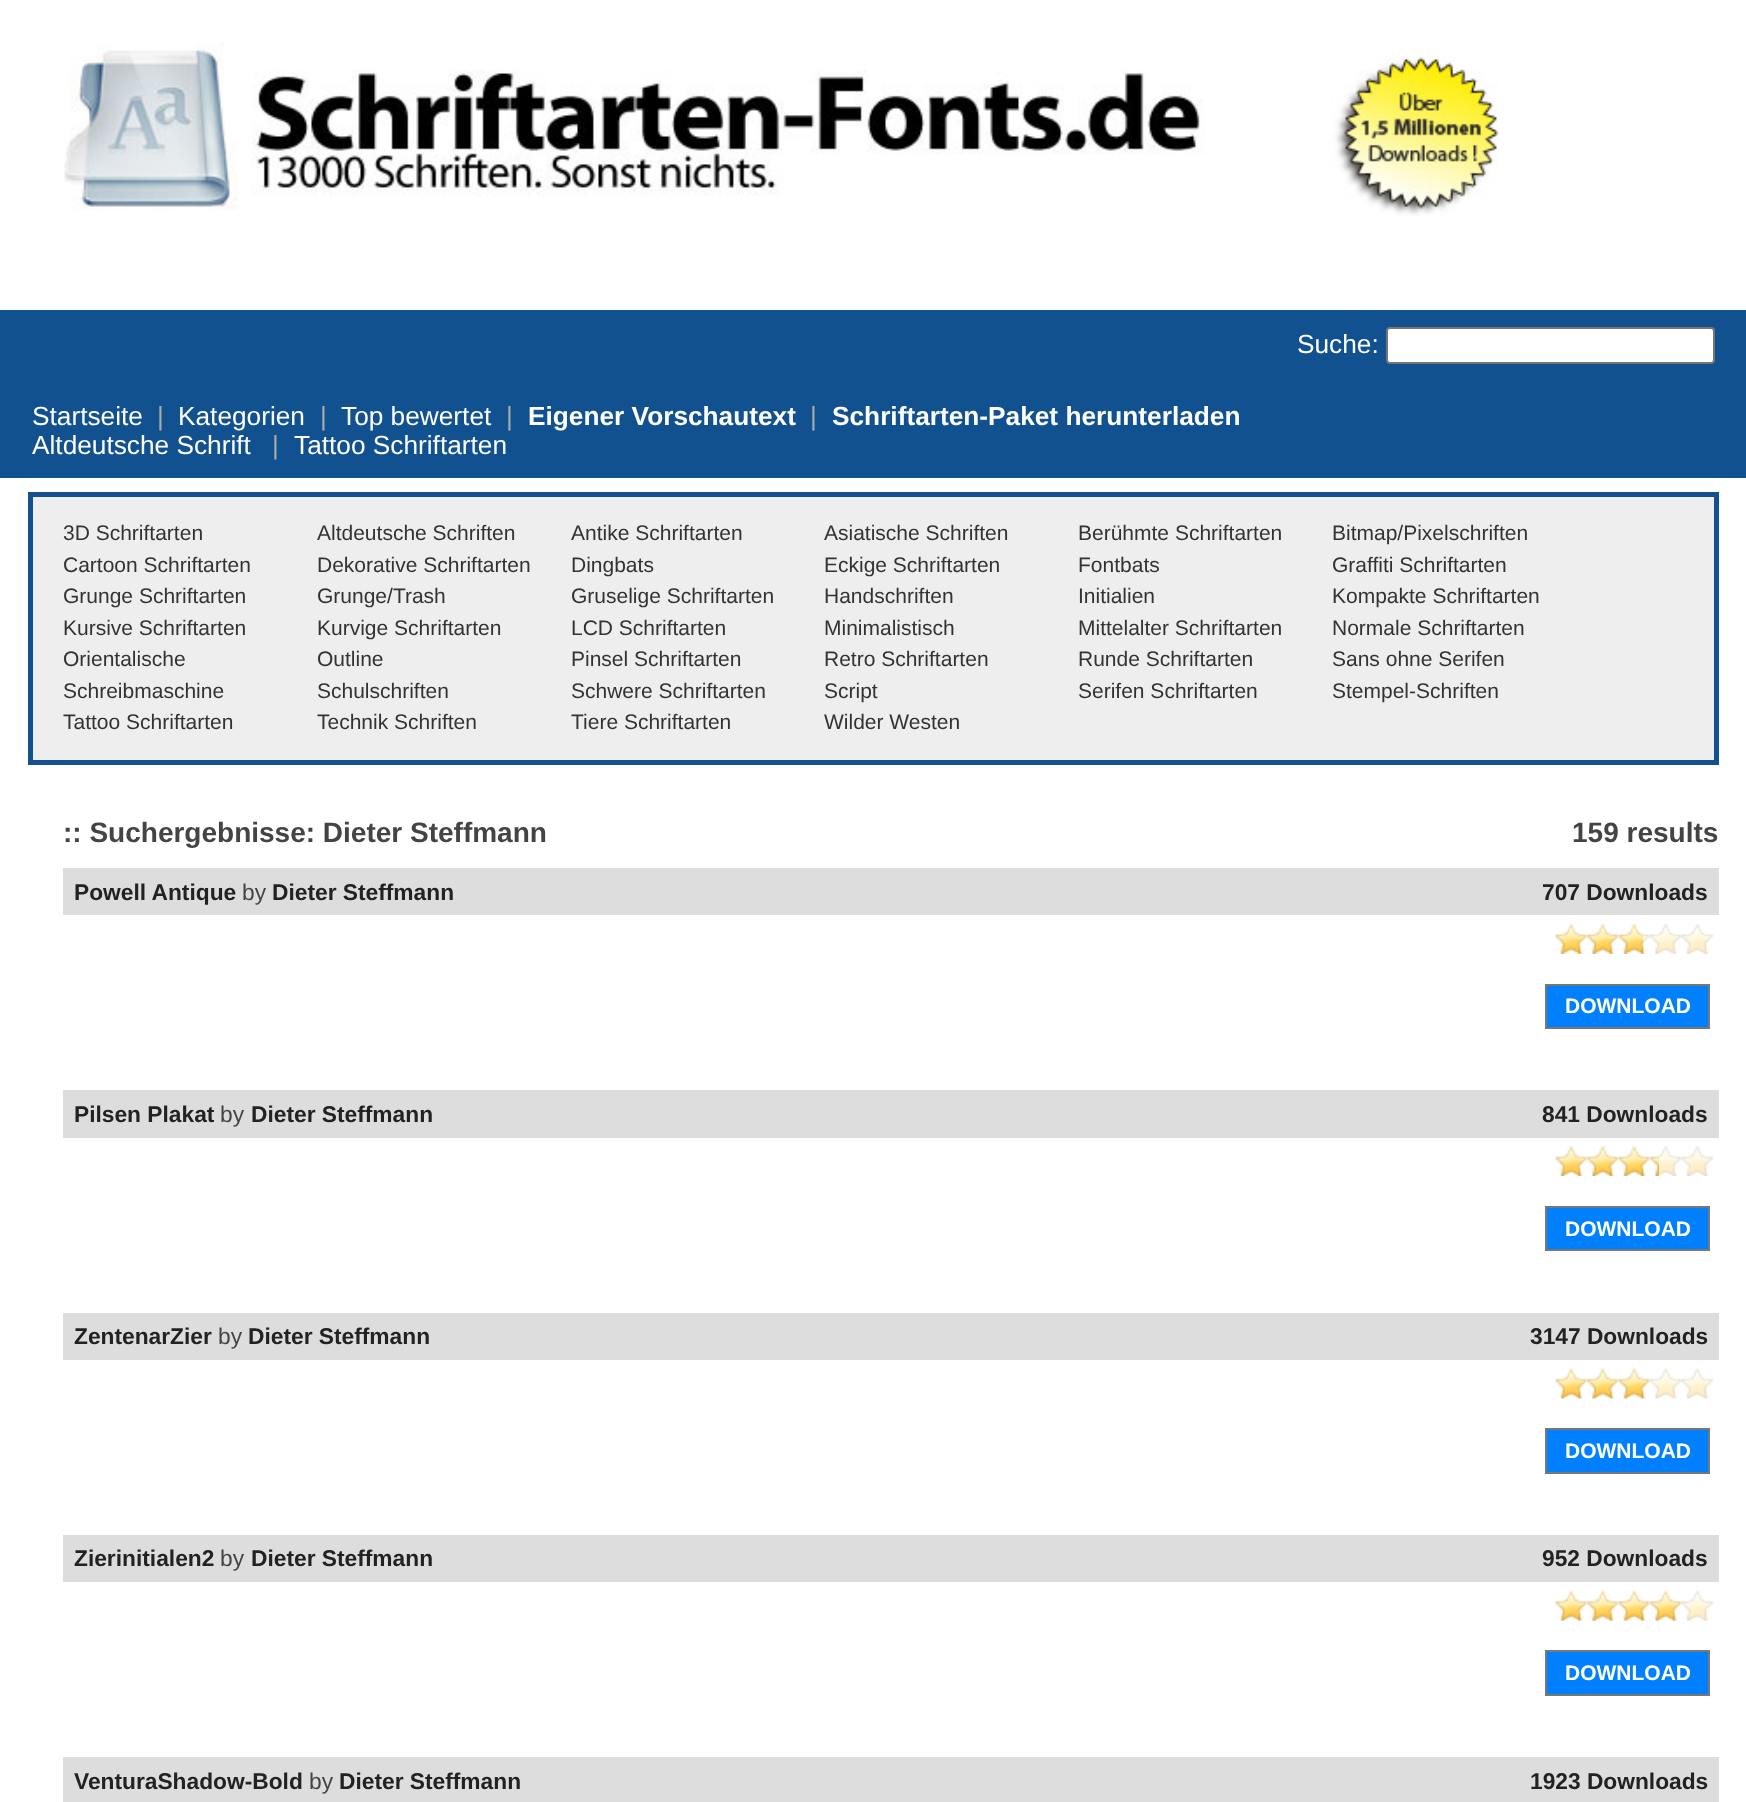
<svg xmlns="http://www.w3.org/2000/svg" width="1746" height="1802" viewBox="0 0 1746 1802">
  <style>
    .t1 { font: 26.25px Liberation Sans; fill: #fff; }
    .t2 { font: 26.25px Liberation Sans; fill: #aaa; }
    .t3 { font: bold 26.25px Liberation Sans; fill: #fff; }
    .t4 { font: 21px Liberation Sans; fill: #333; }
    .t5 { font: bold 28px Liberation Sans; fill: #444; }
    .t6 { font: bold 22.75px Liberation Sans; fill: #222; }
    .t7 { font: 22.75px Liberation Sans; fill: #444; }
    .t8 { font: bold 21px Liberation Sans; fill: #fff; }
  </style>
  <rect width="100%" height="100%" fill="#fff"/>
  <image x="64" y="43" width="1435" height="173" href="images/1.png"/>
  <rect x="0" y="310" width="1746" height="168" fill="#11518f"/>
  <text x="1297" y="353" class="t1">Suche:</text>
  <rect x="1387" y="328" width="327" height="35" rx="3" fill="#fff" stroke="#767676" stroke-width="2"/>
  <text x="32" y="425" class="t1">Startseite</text>
  <text x="157" y="425" class="t2">|</text>
  <text x="178" y="425" class="t1">Kategorien</text>
  <text x="320" y="425" class="t2">|</text>
  <text x="341" y="425" class="t1">Top bewertet</text>
  <text x="506" y="425" class="t2">|</text>
  <text x="528" y="425" class="t3">Eigener Vorschautext</text>
  <text x="810" y="425" class="t2">|</text>
  <text x="832" y="425" class="t3">Schriftarten-Paket herunterladen</text>
  <text x="32" y="454" class="t1">Altdeutsche Schrift</text>
  <text x="272" y="454" class="t2">|</text>
  <text x="294" y="454" class="t1">Tattoo Schriftarten</text>
  <rect x="30.5" y="494.5" width="1686" height="268" fill="#eee" stroke="#11518f" stroke-width="5"/>
  <text x="63" y="540" class="t4">3D Schriftarten</text>
  <text x="317" y="540" class="t4">Altdeutsche Schriften</text>
  <text x="571" y="540" class="t4">Antike Schriftarten</text>
  <text x="824" y="540" class="t4">Asiatische Schriften</text>
  <text x="1078" y="540" class="t4">Berühmte Schriftarten</text>
  <text x="1332" y="540" class="t4">Bitmap/Pixelschriften</text>
  <text x="63" y="572" class="t4">Cartoon Schriftarten</text>
  <text x="317" y="572" class="t4">Dekorative Schriftarten</text>
  <text x="571" y="572" class="t4">Dingbats</text>
  <text x="824" y="572" class="t4">Eckige Schriftarten</text>
  <text x="1078" y="572" class="t4">Fontbats</text>
  <text x="1332" y="572" class="t4">Graffiti Schriftarten</text>
  <text x="63" y="603" class="t4">Grunge Schriftarten</text>
  <text x="317" y="603" class="t4">Grunge/Trash</text>
  <text x="571" y="603" class="t4">Gruselige Schriftarten</text>
  <text x="824" y="603" class="t4">Handschriften</text>
  <text x="1078" y="603" class="t4">Initialien</text>
  <text x="1332" y="603" class="t4">Kompakte Schriftarten</text>
  <text x="63" y="635" class="t4">Kursive Schriftarten</text>
  <text x="317" y="635" class="t4">Kurvige Schriftarten</text>
  <text x="571" y="635" class="t4">LCD Schriftarten</text>
  <text x="824" y="635" class="t4">Minimalistisch</text>
  <text x="1078" y="635" class="t4">Mittelalter Schriftarten</text>
  <text x="1332" y="635" class="t4">Normale Schriftarten</text>
  <text x="63" y="666" class="t4">Orientalische</text>
  <text x="317" y="666" class="t4">Outline</text>
  <text x="571" y="666" class="t4">Pinsel Schriftarten</text>
  <text x="824" y="666" class="t4">Retro Schriftarten</text>
  <text x="1078" y="666" class="t4">Runde Schriftarten</text>
  <text x="1332" y="666" class="t4">Sans ohne Serifen</text>
  <text x="63" y="698" class="t4">Schreibmaschine</text>
  <text x="317" y="698" class="t4">Schulschriften</text>
  <text x="571" y="698" class="t4">Schwere Schriftarten</text>
  <text x="824" y="698" class="t4">Script</text>
  <text x="1078" y="698" class="t4">Serifen Schriftarten</text>
  <text x="1332" y="698" class="t4">Stempel-Schriften</text>
  <text x="63" y="729" class="t4">Tattoo Schriftarten</text>
  <text x="317" y="729" class="t4">Technik Schriften</text>
  <text x="571" y="729" class="t4">Tiere Schriftarten</text>
  <text x="824" y="729" class="t4">Wilder Westen</text>
  <text x="63" y="842" class="t5">:: Suchergebnisse: Dieter Steffmann</text>
  <text x="1572" y="842" class="t5">159 results</text>
  <rect x="63" y="868" width="1656" height="47" fill="#ddd"/>
  <text x="74" y="900" class="t6">Powell Antique</text>
  <text x="242" y="900" class="t7">by</text>
  <text x="272" y="900" class="t6">Dieter Steffmann</text>
  <text x="1542" y="900" class="t6">707 Downloads</text>
  <image x="1555" y="924" width="159" height="30" href="images/2.png"/>
  <image x="1555" y="924" width="89" height="30" href="images/3.png"/>
  <rect x="1546" y="985" width="163" height="43" fill="#0080ff" stroke="#777" stroke-width="2"/>
  <text x="1565" y="1013" class="t8">DOWNLOAD</text>
  <rect x="63" y="1090" width="1656" height="48" fill="#ddd"/>
  <text x="74" y="1122" class="t6">Pilsen Plakat</text>
  <text x="220" y="1122" class="t7">by</text>
  <text x="251" y="1122" class="t6">Dieter Steffmann</text>
  <text x="1542" y="1122" class="t6">841 Downloads</text>
  <image x="1555" y="1146" width="159" height="30" href="images/4.png"/>
  <image x="1555" y="1146" width="104" height="30" href="images/5.png"/>
  <rect x="1546" y="1207" width="163" height="43" fill="#0080ff" stroke="#777" stroke-width="2"/>
  <text x="1565" y="1236" class="t8">DOWNLOAD</text>
  <rect x="63" y="1313" width="1656" height="47" fill="#ddd"/>
  <text x="74" y="1344" class="t6">ZentenarZier</text>
  <text x="218" y="1344" class="t7">by</text>
  <text x="248" y="1344" class="t6">Dieter Steffmann</text>
  <text x="1530" y="1344" class="t6">3147 Downloads</text>
  <image x="1555" y="1368" width="159" height="31" href="images/6.png"/>
  <image x="1555" y="1368" width="96" height="31" href="images/7.png"/>
  <rect x="1546" y="1429" width="163" height="44" fill="#0080ff" stroke="#777" stroke-width="2"/>
  <text x="1565" y="1458" class="t8">DOWNLOAD</text>
  <rect x="63" y="1535" width="1656" height="47" fill="#ddd"/>
  <text x="74" y="1566" class="t6">Zierinitialen2</text>
  <text x="220" y="1566" class="t7">by</text>
  <text x="251" y="1566" class="t6">Dieter Steffmann</text>
  <text x="1542" y="1566" class="t6">952 Downloads</text>
  <image x="1555" y="1590" width="159" height="31" href="images/8.png"/>
  <image x="1555" y="1590" width="127" height="31" href="images/9.png"/>
  <rect x="1546" y="1651" width="163" height="44" fill="#0080ff" stroke="#777" stroke-width="2"/>
  <text x="1565" y="1680" class="t8">DOWNLOAD</text>
  <rect x="63" y="1757" width="1656" height="45" fill="#ddd"/>
  <text x="74" y="1789" class="t6">VenturaShadow-Bold</text>
  <text x="309" y="1789" class="t7">by</text>
  <text x="339" y="1789" class="t6">Dieter Steffmann</text>
  <text x="1530" y="1789" class="t6">1923 Downloads</text>
</svg>
